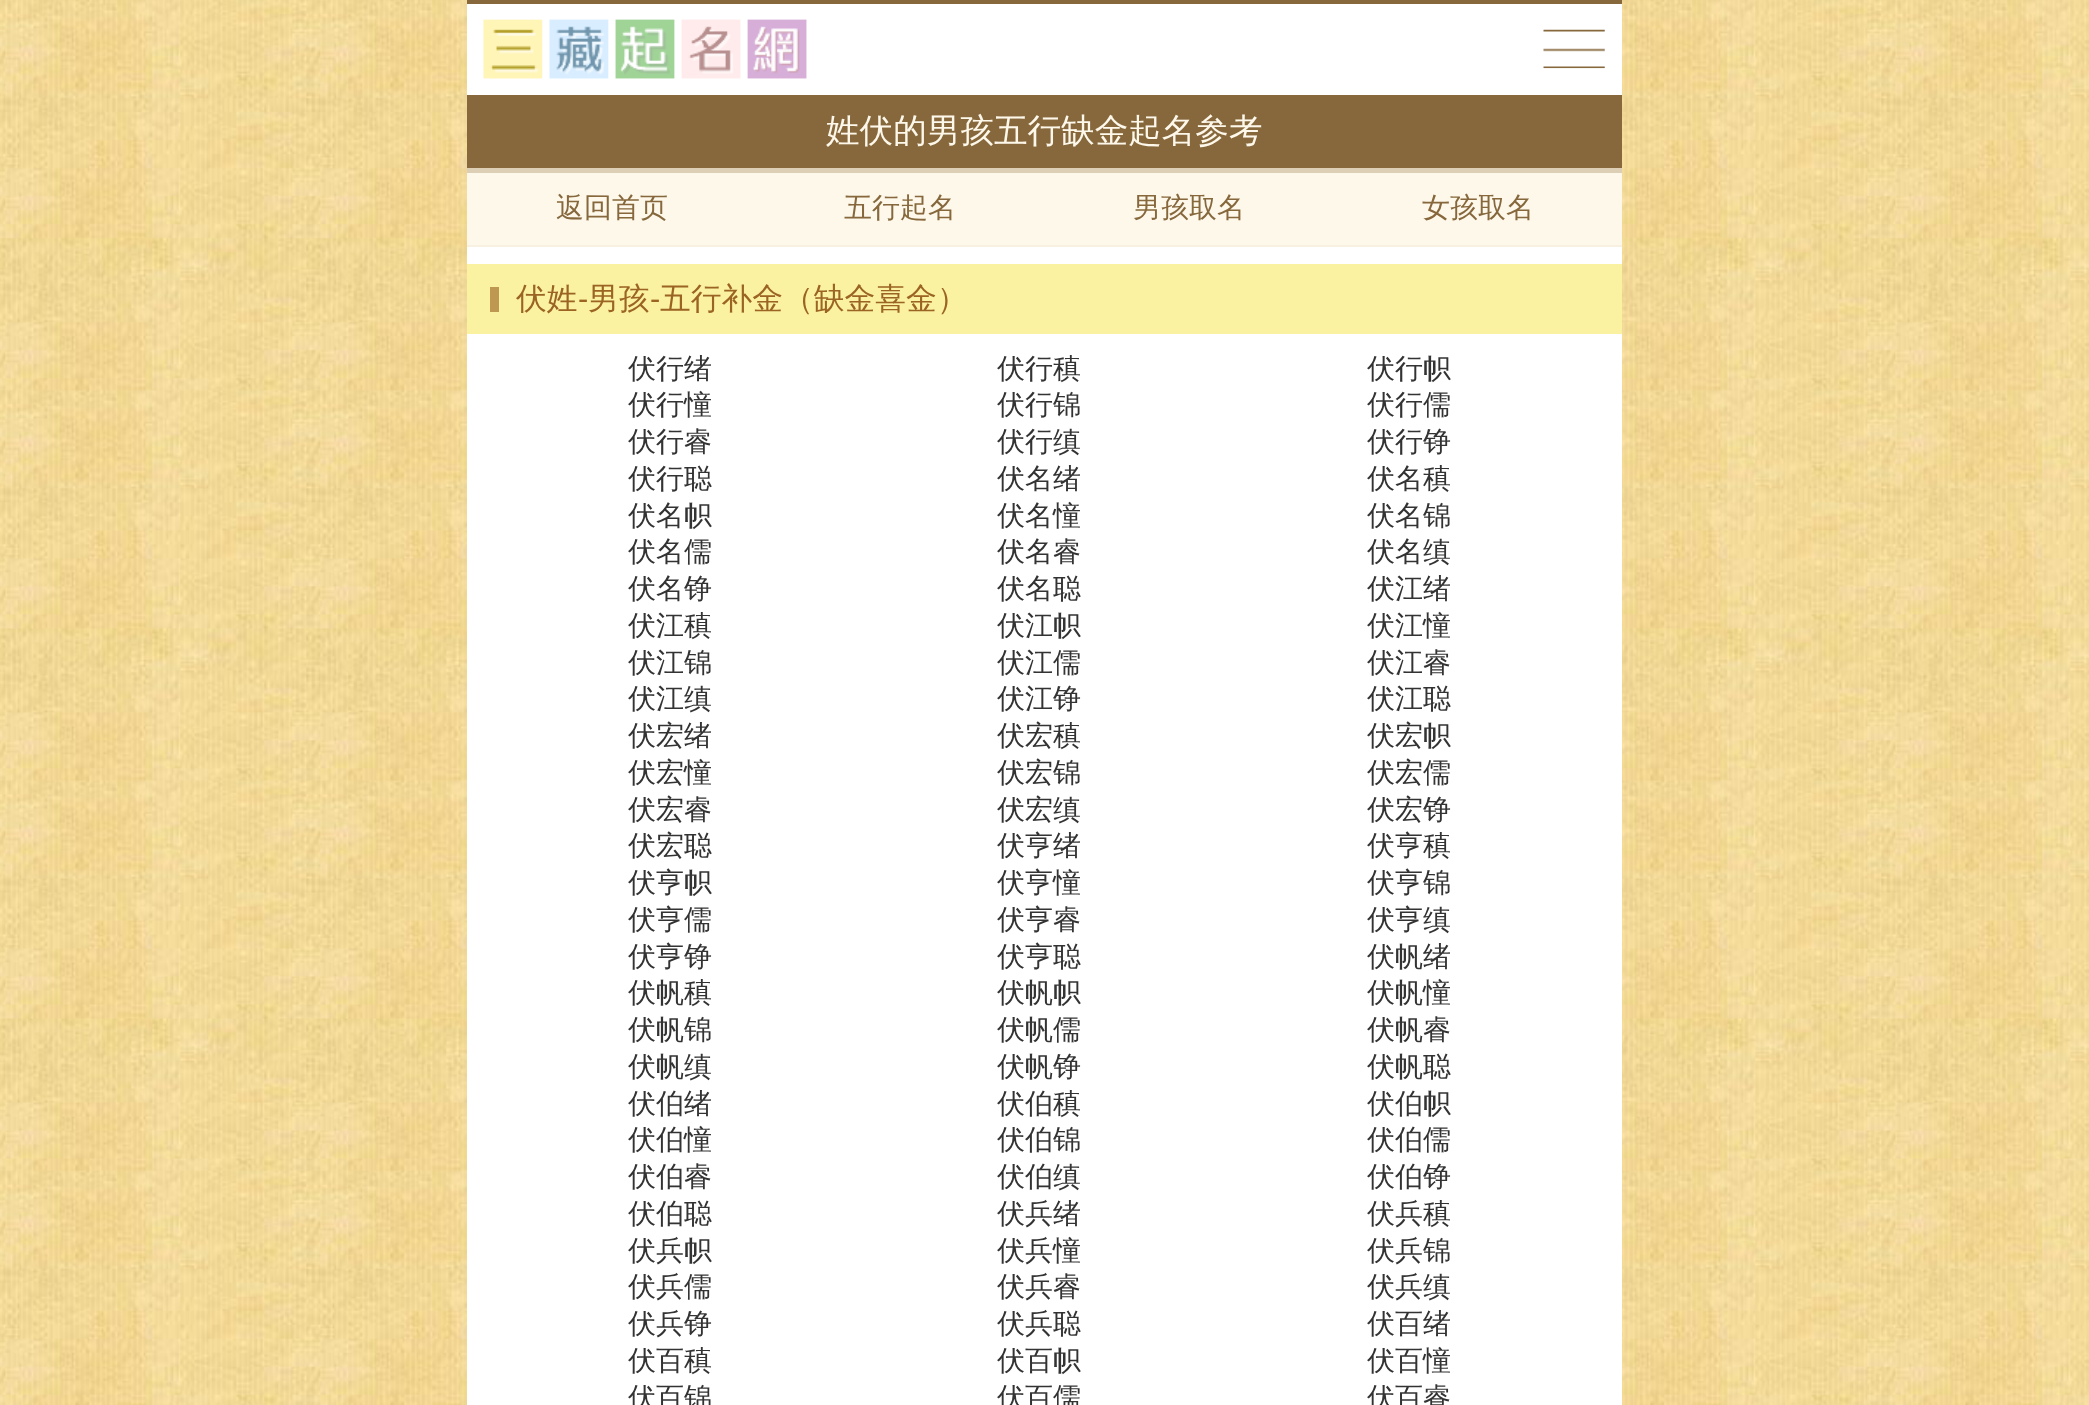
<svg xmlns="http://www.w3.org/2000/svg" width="2089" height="1405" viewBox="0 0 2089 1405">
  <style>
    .t1 { font: 500 33.6px WenQuanYi Zen Hei; fill: #fef8eb; }
    .t2 { font: 500 28px WenQuanYi Zen Hei; fill: #86683c; }
    .t3 { font: 500 30.75px WenQuanYi Zen Hei; fill: #9b6423; }
    .t4 { font: 30.75px Liberation Sans; fill: #9b6423; }
    .t5 { font: 500 28px WenQuanYi Zen Hei; fill: #333; }
  </style>
  <rect width="100%" height="100%" fill="#fff"/>
  <image x="0" y="0" width="2089" height="1405" href="images/1.png"/>
  <rect x="467" y="4" width="1155" height="1401" fill="#fff"/>
  <rect x="467" y="0" width="1155" height="4" fill="#86683c"/>
  <image x="483" y="19" width="324" height="60" href="images/2.png"/>
  <image x="1543" y="29" width="62" height="40" href="images/3.png"/>
  <rect x="467" y="95" width="1155" height="73" fill="#86683c"/>
  <rect x="467" y="168" width="1155" height="5" fill="#ddcfb5"/>
  <text x="826" y="142" class="t1">姓伏的男孩五行缺金起名参考</text>
  <rect x="467" y="173" width="1155" height="72" fill="#fef8eb"/>
  <rect x="467" y="245" width="1155" height="2" fill="#f8f1e1"/>
  <text x="556" y="217" class="t2">返回首页</text>
  <text x="844" y="217" class="t2">五行起名</text>
  <text x="1133" y="217" class="t2">男孩取名</text>
  <text x="1422" y="217" class="t2">女孩取名</text>
  <rect x="467" y="264" width="1155" height="70" fill="#faf2a1"/>
  <rect x="490" y="287" width="9" height="25" fill="#be9851"/>
  <text x="516" y="309" class="t3">伏姓</text>
  <text x="578" y="309" class="t4">-</text>
  <text x="588" y="309" class="t3">男孩</text>
  <text x="650" y="309" class="t4">-</text>
  <text x="660" y="309" class="t3">五行补金（缺金喜金）</text>
  <text x="628" y="378" class="t5">伏行绪</text>
  <text x="997" y="378" class="t5">伏行稹</text>
  <text x="1367" y="378" class="t5">伏行帜</text>
  <text x="628" y="414" class="t5">伏行憧</text>
  <text x="997" y="414" class="t5">伏行锦</text>
  <text x="1367" y="414" class="t5">伏行儒</text>
  <text x="628" y="451" class="t5">伏行睿</text>
  <text x="997" y="451" class="t5">伏行缜</text>
  <text x="1367" y="451" class="t5">伏行铮</text>
  <text x="628" y="488" class="t5">伏行聪</text>
  <text x="997" y="488" class="t5">伏名绪</text>
  <text x="1367" y="488" class="t5">伏名稹</text>
  <text x="628" y="525" class="t5">伏名帜</text>
  <text x="997" y="525" class="t5">伏名憧</text>
  <text x="1367" y="525" class="t5">伏名锦</text>
  <text x="628" y="561" class="t5">伏名儒</text>
  <text x="997" y="561" class="t5">伏名睿</text>
  <text x="1367" y="561" class="t5">伏名缜</text>
  <text x="628" y="598" class="t5">伏名铮</text>
  <text x="997" y="598" class="t5">伏名聪</text>
  <text x="1367" y="598" class="t5">伏江绪</text>
  <text x="628" y="635" class="t5">伏江稹</text>
  <text x="997" y="635" class="t5">伏江帜</text>
  <text x="1367" y="635" class="t5">伏江憧</text>
  <text x="628" y="672" class="t5">伏江锦</text>
  <text x="997" y="672" class="t5">伏江儒</text>
  <text x="1367" y="672" class="t5">伏江睿</text>
  <text x="628" y="708" class="t5">伏江缜</text>
  <text x="997" y="708" class="t5">伏江铮</text>
  <text x="1367" y="708" class="t5">伏江聪</text>
  <text x="628" y="745" class="t5">伏宏绪</text>
  <text x="997" y="745" class="t5">伏宏稹</text>
  <text x="1367" y="745" class="t5">伏宏帜</text>
  <text x="628" y="782" class="t5">伏宏憧</text>
  <text x="997" y="782" class="t5">伏宏锦</text>
  <text x="1367" y="782" class="t5">伏宏儒</text>
  <text x="628" y="819" class="t5">伏宏睿</text>
  <text x="997" y="819" class="t5">伏宏缜</text>
  <text x="1367" y="819" class="t5">伏宏铮</text>
  <text x="628" y="855" class="t5">伏宏聪</text>
  <text x="997" y="855" class="t5">伏亨绪</text>
  <text x="1367" y="855" class="t5">伏亨稹</text>
  <text x="628" y="892" class="t5">伏亨帜</text>
  <text x="997" y="892" class="t5">伏亨憧</text>
  <text x="1367" y="892" class="t5">伏亨锦</text>
  <text x="628" y="929" class="t5">伏亨儒</text>
  <text x="997" y="929" class="t5">伏亨睿</text>
  <text x="1367" y="929" class="t5">伏亨缜</text>
  <text x="628" y="966" class="t5">伏亨铮</text>
  <text x="997" y="966" class="t5">伏亨聪</text>
  <text x="1367" y="966" class="t5">伏帆绪</text>
  <text x="628" y="1002" class="t5">伏帆稹</text>
  <text x="997" y="1002" class="t5">伏帆帜</text>
  <text x="1367" y="1002" class="t5">伏帆憧</text>
  <text x="628" y="1039" class="t5">伏帆锦</text>
  <text x="997" y="1039" class="t5">伏帆儒</text>
  <text x="1367" y="1039" class="t5">伏帆睿</text>
  <text x="628" y="1076" class="t5">伏帆缜</text>
  <text x="997" y="1076" class="t5">伏帆铮</text>
  <text x="1367" y="1076" class="t5">伏帆聪</text>
  <text x="628" y="1113" class="t5">伏伯绪</text>
  <text x="997" y="1113" class="t5">伏伯稹</text>
  <text x="1367" y="1113" class="t5">伏伯帜</text>
  <text x="628" y="1149" class="t5">伏伯憧</text>
  <text x="997" y="1149" class="t5">伏伯锦</text>
  <text x="1367" y="1149" class="t5">伏伯儒</text>
  <text x="628" y="1186" class="t5">伏伯睿</text>
  <text x="997" y="1186" class="t5">伏伯缜</text>
  <text x="1367" y="1186" class="t5">伏伯铮</text>
  <text x="628" y="1223" class="t5">伏伯聪</text>
  <text x="997" y="1223" class="t5">伏兵绪</text>
  <text x="1367" y="1223" class="t5">伏兵稹</text>
  <text x="628" y="1260" class="t5">伏兵帜</text>
  <text x="997" y="1260" class="t5">伏兵憧</text>
  <text x="1367" y="1260" class="t5">伏兵锦</text>
  <text x="628" y="1296" class="t5">伏兵儒</text>
  <text x="997" y="1296" class="t5">伏兵睿</text>
  <text x="1367" y="1296" class="t5">伏兵缜</text>
  <text x="628" y="1333" class="t5">伏兵铮</text>
  <text x="997" y="1333" class="t5">伏兵聪</text>
  <text x="1367" y="1333" class="t5">伏百绪</text>
  <text x="628" y="1370" class="t5">伏百稹</text>
  <text x="997" y="1370" class="t5">伏百帜</text>
  <text x="1367" y="1370" class="t5">伏百憧</text>
  <text x="628" y="1407" class="t5">伏百锦</text>
  <text x="997" y="1407" class="t5">伏百儒</text>
  <text x="1367" y="1407" class="t5">伏百睿</text>
</svg>
